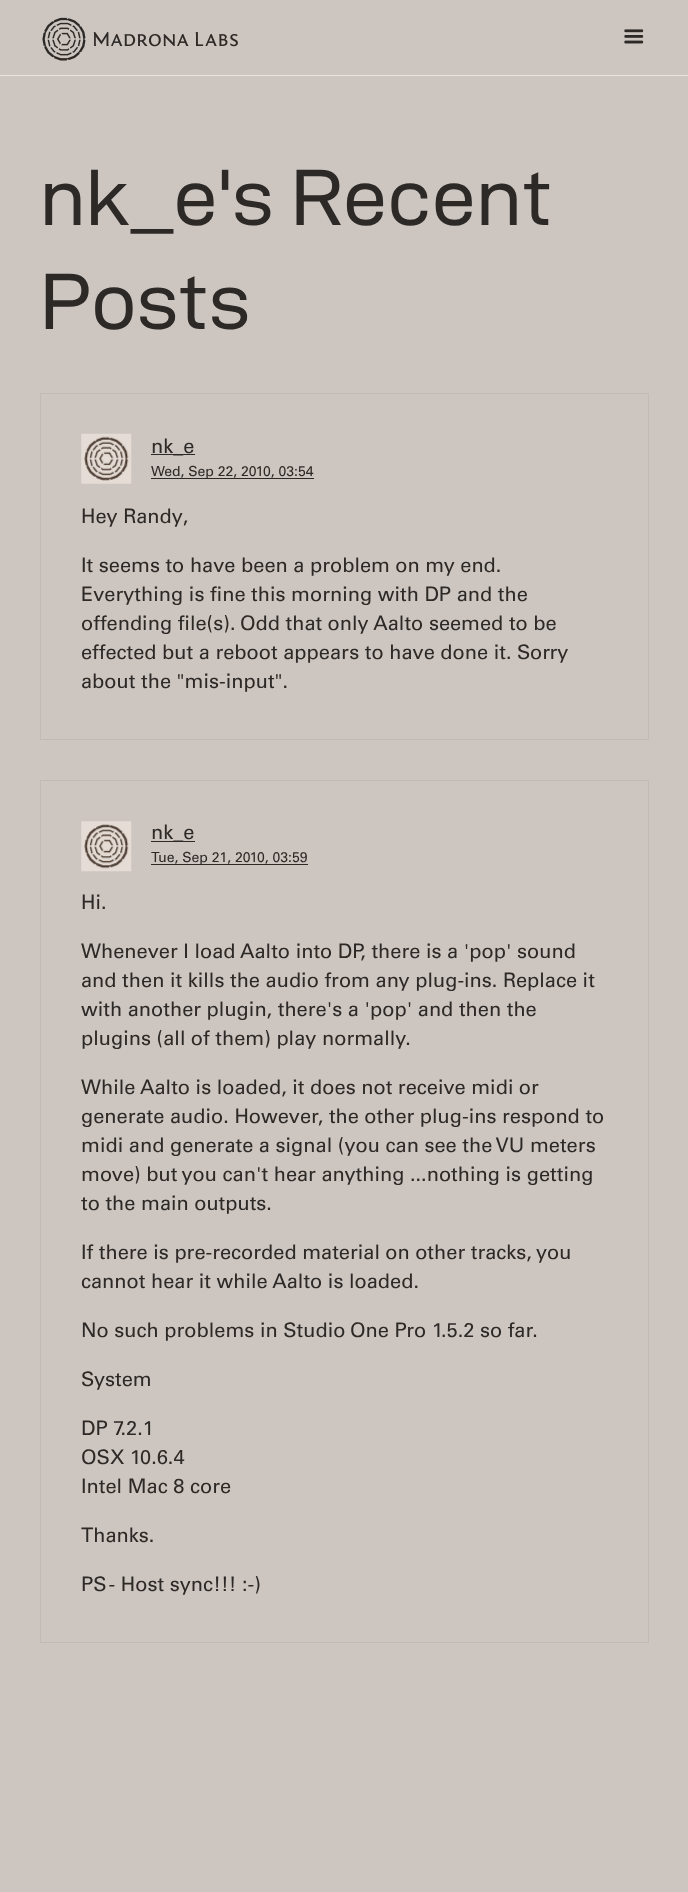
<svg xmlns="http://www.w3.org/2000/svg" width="688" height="1892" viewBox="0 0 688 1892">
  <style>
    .t1 { font: 80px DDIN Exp; fill: #2d2927; }
    .t2 { font: 20px Univers; fill: #2d2927; }
    .t3 { font: 14px Univers; fill: #2d2927; }
  </style>
  <rect width="100%" height="100%" fill="#cdc6c0"/>
  <rect x="0" y="75" width="688" height="1" fill="#e7e5e4"/>
  <image x="42" y="17" width="196" height="44" href="images/1.png"/>
  <image x="624" y="29" width="20" height="15" href="images/2.png"/>
  <text x="40" y="225" class="t1">nk_e's Recent</text>
  <text x="40" y="329" class="t1">Posts</text>
  <rect x="40.5" y="393.5" width="608" height="346" fill="none" stroke="#c1bab5"/>
  <image x="81" y="433" width="51" height="51" href="images/3.png"/>
  <rect x="151" y="454" width="44" height="1" fill="#2d2927"/>
  <text x="151" y="453" class="t2">nk_e</text>
  <rect x="151" y="478" width="163" height="1" fill="#2d2927"/>
  <text x="151" y="476" class="t3">Wed, Sep 22, 2010, 03:54</text>
  <text x="81" y="523" class="t2">Hey Randy,</text>
  <text x="81" y="572" class="t2">It seems to have been a problem on my end.</text>
  <text x="81" y="601" class="t2">Everything is fine this morning with DP and the</text>
  <text x="81" y="630" class="t2">offending file(s). Odd that only Aalto seemed to be</text>
  <text x="81" y="659" class="t2">effected but a reboot appears to have done it. Sorry</text>
  <text x="81" y="688" class="t2">about the "mis-input".</text>
  <rect x="40.5" y="780.5" width="608" height="862" fill="none" stroke="#c1bab5"/>
  <image x="81" y="821" width="51" height="51" href="images/4.png"/>
  <rect x="151" y="841" width="44" height="1" fill="#2d2927"/>
  <text x="151" y="839" class="t2">nk_e</text>
  <rect x="151" y="864" width="157" height="1" fill="#2d2927"/>
  <text x="151" y="862" class="t3">Tue, Sep 21, 2010, 03:59</text>
  <text x="81" y="909" class="t2">Hi.</text>
  <text x="81" y="958" class="t2">Whenever I load Aalto into DP, there is a 'pop' sound</text>
  <text x="81" y="987" class="t2">and then it kills the audio from any plug-ins. Replace it</text>
  <text x="81" y="1016" class="t2">with another plugin, there's a 'pop' and then the</text>
  <text x="81" y="1045" class="t2">plugins (all of them) play normally.</text>
  <text x="81" y="1094" class="t2">While Aalto is loaded, it does not receive midi or</text>
  <text x="81" y="1123" class="t2">generate audio. However, the other plug-ins respond to</text>
  <text x="81" y="1152" class="t2">midi and generate a signal (you can see the VU meters</text>
  <text x="81" y="1181" class="t2">move) but you can't hear anything ...nothing is getting</text>
  <text x="81" y="1210" class="t2">to the main outputs.</text>
  <text x="81" y="1259" class="t2">If there is pre-recorded material on other tracks, you</text>
  <text x="81" y="1288" class="t2">cannot hear it while Aalto is loaded.</text>
  <text x="81" y="1337" class="t2">No such problems in Studio One Pro 1.5.2 so far.</text>
  <text x="81" y="1386" class="t2">System</text>
  <text x="81" y="1435" class="t2">DP 7.2.1</text>
  <text x="81" y="1464" class="t2">OSX 10.6.4</text>
  <text x="81" y="1493" class="t2">Intel Mac 8 core</text>
  <text x="81" y="1542" class="t2">Thanks.</text>
  <text x="81" y="1591" class="t2">PS - Host sync!!! :-)</text>
</svg>
